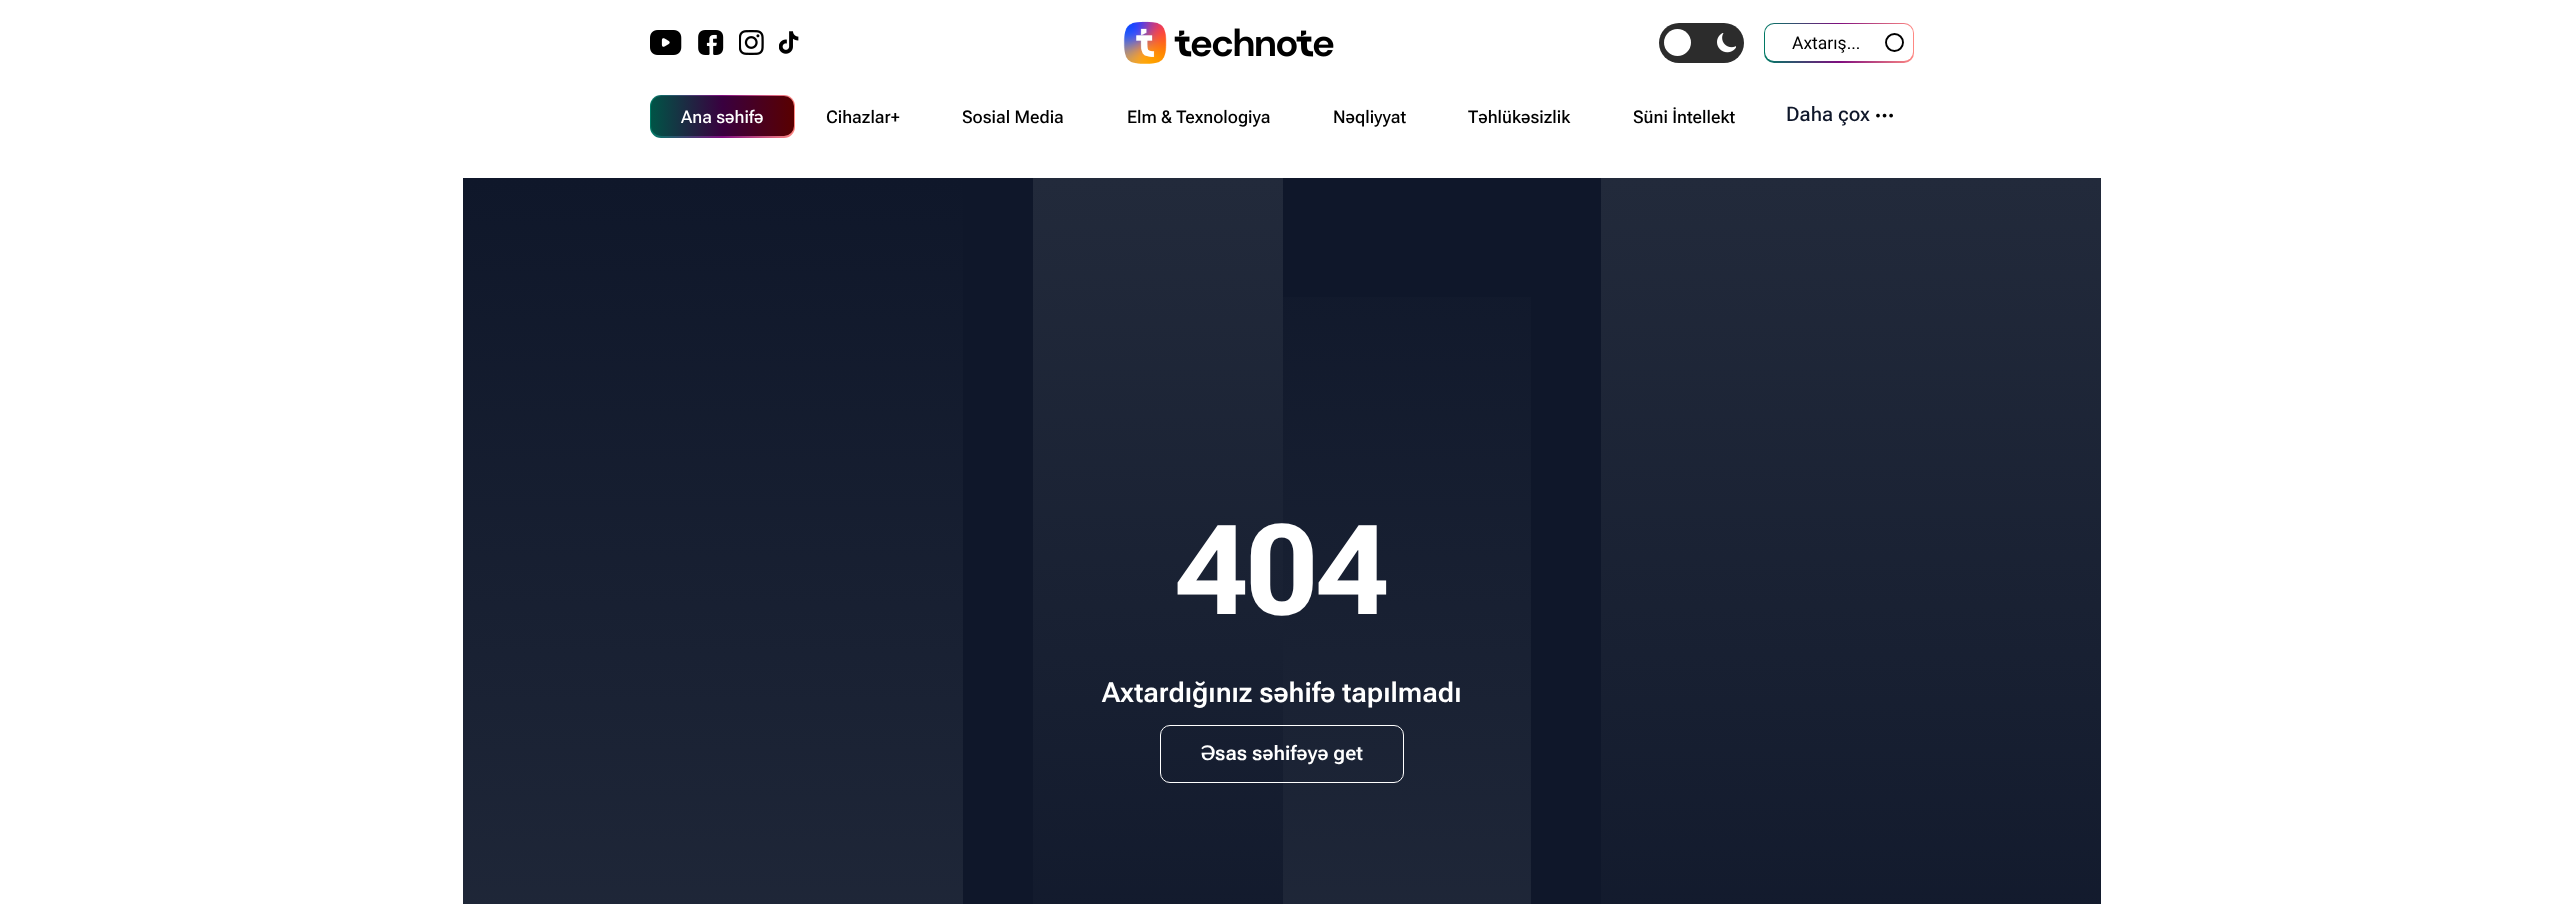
<svg xmlns="http://www.w3.org/2000/svg" width="2563" height="904" viewBox="0 0 2563 904">
  <style>
    .t1 { font: 17.5px Roboto; fill: #000; }
    .t2 { font: 500 17.5px Roboto Flex; fill: #fff; }
    .t3 { font: 500 17.5px Roboto Flex; fill: #000; }
    .t4 { font: 500 20px Roboto Flex; fill: #0f172a; }
    .t5 { font: bold 125px Roboto Flex; fill: #fff; }
    .t6 { font: 600 27.5px Roboto Flex; fill: #fff; }
    .t7 { font: 600 20px Roboto Flex; fill: #fff; }
  </style>
  <defs>
    <linearGradient id="g1" gradientUnits="userSpaceOnUse" x1="1764" y1="43" x2="1914" y2="42"><stop offset="0" stop-color="#007a65"/><stop offset="0.5" stop-color="#7f0e7f"/><stop offset="1" stop-color="#ff8983"/></linearGradient>
    <linearGradient id="g2" gradientUnits="userSpaceOnUse" x1="650" y1="116" x2="795" y2="116"><stop offset="0" stop-color="#007a65"/><stop offset="0.5" stop-color="#7f0e7f"/><stop offset="1" stop-color="#ff8983"/></linearGradient>
    <linearGradient id="g3" gradientUnits="userSpaceOnUse" x1="651" y1="116" x2="794" y2="116"><stop offset="0" stop-color="#005446"/><stop offset="0.5" stop-color="#39003f"/><stop offset="1" stop-color="#590000"/></linearGradient>
    <linearGradient id="g4" gradientUnits="userSpaceOnUse" x1="713" y1="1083" x2="713" y2="178"><stop offset="0" stop-color="#222a3b"/><stop offset="1" stop-color="#0f172a"/></linearGradient>
    <linearGradient id="g5" gradientUnits="userSpaceOnUse" x1="1158" y1="178" x2="1158" y2="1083"><stop offset="0" stop-color="#222a3b"/><stop offset="1" stop-color="#0f172a"/></linearGradient>
    <linearGradient id="g6" gradientUnits="userSpaceOnUse" x1="1407" y1="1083" x2="1407" y2="178"><stop offset="0" stop-color="#222a3b"/><stop offset="1" stop-color="#0f172a"/></linearGradient>
    <linearGradient id="g7" gradientUnits="userSpaceOnUse" x1="1851" y1="178" x2="1851" y2="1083"><stop offset="0" stop-color="#222a3b"/><stop offset="1" stop-color="#0f172a"/></linearGradient>
  </defs>
  <rect width="100%" height="100%" fill="#fff"/>
  <image x="650" y="30" width="32" height="25" href="images/1.png"/>
  <image x="698" y="30" width="26" height="25" href="images/2.png"/>
  <image x="739" y="30" width="25" height="25" href="images/3.png"/>
  <image x="779" y="31" width="20" height="23" href="images/4.png"/>
  <image x="1123" y="21" width="44" height="43" href="images/5.png"/>
  <image x="1174" y="28" width="160" height="29" href="images/6.png"/>
  <rect x="1659" y="23" width="85" height="40" rx="20" fill="#2c2c2c"/>
  <circle cx="1677.5" cy="42.5" r="13.5" fill="#fff"/>
  <image x="1717" y="33" width="19" height="20" href="images/7.png"/>
  <rect x="1764" y="23" width="150" height="40" rx="10" fill="url(#g1)"/>
  <rect x="1765" y="24" width="148" height="37" rx="9" fill="#fff"/>
  <text x="1792" y="49" class="t1">Axtarış...</text>
  <circle cx="1894.5" cy="42.5" r="8.5" fill="none" stroke="#000" stroke-width="1.9"/>
  <rect x="650" y="95" width="145" height="43" rx="11" fill="url(#g2)"/>
  <rect x="651" y="96" width="143" height="40" rx="10" fill="url(#g3)"/>
  <text x="681" y="123" class="t2">Ana səhifə</text>
  <text x="826" y="123" class="t3">Cihazlar+</text>
  <text x="962" y="123" class="t3">Sosial Media</text>
  <text x="1127" y="123" class="t3">Elm &amp; Texnologiya</text>
  <text x="1333" y="123" class="t3">Nəqliyyat</text>
  <text x="1468" y="123" class="t3">Təhlükəsizlik</text>
  <text x="1633" y="123" class="t3">Süni İntellekt</text>
  <text x="1786" y="121" class="t4">Daha çox</text>
  <image x="1876" y="113" width="17" height="5" href="images/8.png"/>
  <rect x="963" y="178" width="638" height="726" fill="#0f172a"/>
  <rect x="463" y="178" width="500" height="726" fill="url(#g4)"/>
  <rect x="1033" y="178" width="250" height="726" fill="url(#g5)"/>
  <rect x="1283" y="297" width="248" height="607" fill="url(#g6)"/>
  <rect x="1601" y="178" width="500" height="726" fill="url(#g7)"/>
  <text x="1176" y="614" class="t5">404</text>
  <text x="1102" y="702" class="t6">Axtardığınız səhifə tapılmadı</text>
  <rect x="1160.5" y="725.5" width="243" height="57" rx="9.5" fill="none" stroke="#fff"/>
  <text x="1201" y="760" class="t7">Əsas səhifəyə get</text>
</svg>
